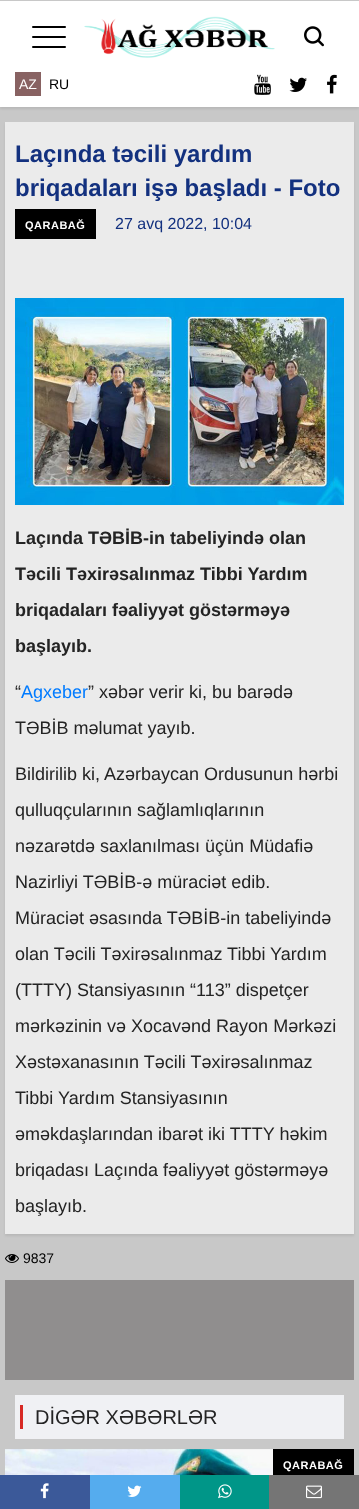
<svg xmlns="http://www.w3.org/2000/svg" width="359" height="1509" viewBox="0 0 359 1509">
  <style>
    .t1 { font: 14px Liberation Sans; fill: #fff; }
    .t2 { font: 14px Liberation Sans; fill: #000; }
    .t3 { font: bold 24px Liberation Sans; fill: #13317f; }
    .t4 { font: bold 11px Liberation Sans; letter-spacing: 0.5px; fill: #fff; }
    .t5 { font: 16px Liberation Sans; fill: #13317f; }
    .t6 { font: bold 18px Liberation Sans; fill: #232323; }
    .t7 { font: 18px Liberation Sans; fill: #232323; }
    .t8 { font: 18px Liberation Sans; fill: #007bff; }
    .t9 { font: 20px Liberation Sans; fill: #232323; }
  </style>
  <rect width="100%" height="100%" fill="#c8c8c8"/>
  <rect x="0" y="3" width="359" height="106" fill="#00000014" filter="blur(1px)"/>
  <rect x="0" y="1" width="359" height="106" fill="#fff"/>
  <rect x="32" y="46" width="34" height="2" rx="1" fill="#000"/>
  <rect x="32" y="36" width="34" height="2" rx="1" fill="#000"/>
  <rect x="32" y="26" width="34" height="2" rx="1" fill="#000"/>
  <image x="84" y="16" width="191" height="42" href="images/1.png"/>
  <image x="304" y="26" width="20" height="21" href="images/2.png"/>
  <rect x="15" y="72" width="26" height="24" fill="#886262"/>
  <text x="19" y="89" class="t1">AZ</text>
  <text x="49" y="89" class="t2">RU</text>
  <image x="254" y="74" width="17" height="21" href="images/3.png"/>
  <image x="289" y="77" width="18" height="15" href="images/4.png"/>
  <image x="327" y="74" width="10" height="20" href="images/5.png"/>
  <rect x="5" y="124" width="349" height="1112" fill="#00000014" filter="blur(1px)"/>
  <rect x="5" y="122" width="349" height="1112" fill="#ebebeb"/>
  <text x="15" y="162" class="t3">Laçında təcili yardım</text>
  <text x="15" y="196" class="t3">briqadaları işə başladı - Foto</text>
  <rect x="15" y="209" width="81" height="30" fill="#000"/>
  <text x="25" y="229" class="t4">QARABAĞ</text>
  <text x="115" y="229" class="t5">27 avq 2022, 10:04</text>
  <rect x="0" y="1475" width="90" height="34" fill="#3b5999"/>
  <image x="40" y="1483" width="9" height="16" href="images/6.png"/>
  <rect x="90" y="1475" width="90" height="34" fill="#55acee"/>
  <image x="127" y="1485" width="15" height="12" href="images/7.png"/>
  <rect x="180" y="1475" width="89" height="34" fill="#009688"/>
  <image x="218" y="1484" width="14" height="15" href="images/8.png"/>
  <rect x="269" y="1475" width="90" height="34" fill="#757575"/>
  <image x="306" y="1485" width="16" height="14" href="images/9.png"/>
  <image x="15" y="298" width="329" height="207" href="images/10.png"/>
  <text x="15" y="544" class="t6">Laçında TƏBİB-in tabeliyində olan</text>
  <text x="15" y="580" class="t6">Təcili Təxirəsalınmaz Tibbi Yardım</text>
  <text x="15" y="616" class="t6">briqadaları fəaliyyət göstərməyə</text>
  <text x="15" y="652" class="t6">başlayıb.</text>
  <text x="15" y="698" class="t7">“</text>
  <text x="21" y="698" class="t8">Agxeber</text>
  <text x="88" y="698" class="t7">” xəbər verir ki, bu barədə</text>
  <text x="15" y="734" class="t7">TƏBİB məlumat yayıb.</text>
  <text x="15" y="780" class="t7">Bildirilib ki, Azərbaycan Ordusunun hərbi</text>
  <text x="15" y="816" class="t7">qulluqçularının sağlamlıqlarının</text>
  <text x="15" y="852" class="t7">nəzarətdə saxlanılması üçün Müdafiə</text>
  <text x="15" y="888" class="t7">Nazirliyi TƏBİB-ə müraciət edib.</text>
  <text x="15" y="924" class="t7">Müraciət əsasında TƏBİB-in tabeliyində</text>
  <text x="15" y="960" class="t7">olan Təcili Təxirəsalınmaz Tibbi Yardım</text>
  <text x="15" y="996" class="t7">(TTTY) Stansiyasının “113” dispetçer</text>
  <text x="15" y="1032" class="t7">mərkəzinin və Xocavənd Rayon Mərkəzi</text>
  <text x="15" y="1068" class="t7">Xəstəxanasının Təcili Təxirəsalınmaz</text>
  <text x="15" y="1104" class="t7">Tibbi Yardım Stansiyasının</text>
  <text x="15" y="1140" class="t7">əməkdaşlarından ibarət iki TTTY həkim</text>
  <text x="15" y="1176" class="t7">briqadası Laçında fəaliyyət göstərməyə</text>
  <text x="15" y="1212" class="t7">başlayıb.</text>
  <image x="5" y="1254" width="14" height="9" href="images/11.png"/>
  <text x="23" y="1263" class="t2">9837</text>
  <rect x="5" y="1280" width="349" height="100" fill="#908e8e"/>
  <rect x="15" y="1395" width="329" height="44" fill="#f0f1f4"/>
  <rect x="20" y="1405" width="3" height="24" fill="#d72924"/>
  <text x="35" y="1424" class="t9">DİGƏR XƏBƏRLƏR</text>
  <image x="5" y="1449" width="268" height="26" href="images/12.png"/>
  <rect x="273" y="1449" width="81" height="26" fill="#000"/>
  <text x="283" y="1469" class="t4">QARABAĞ</text>
</svg>
